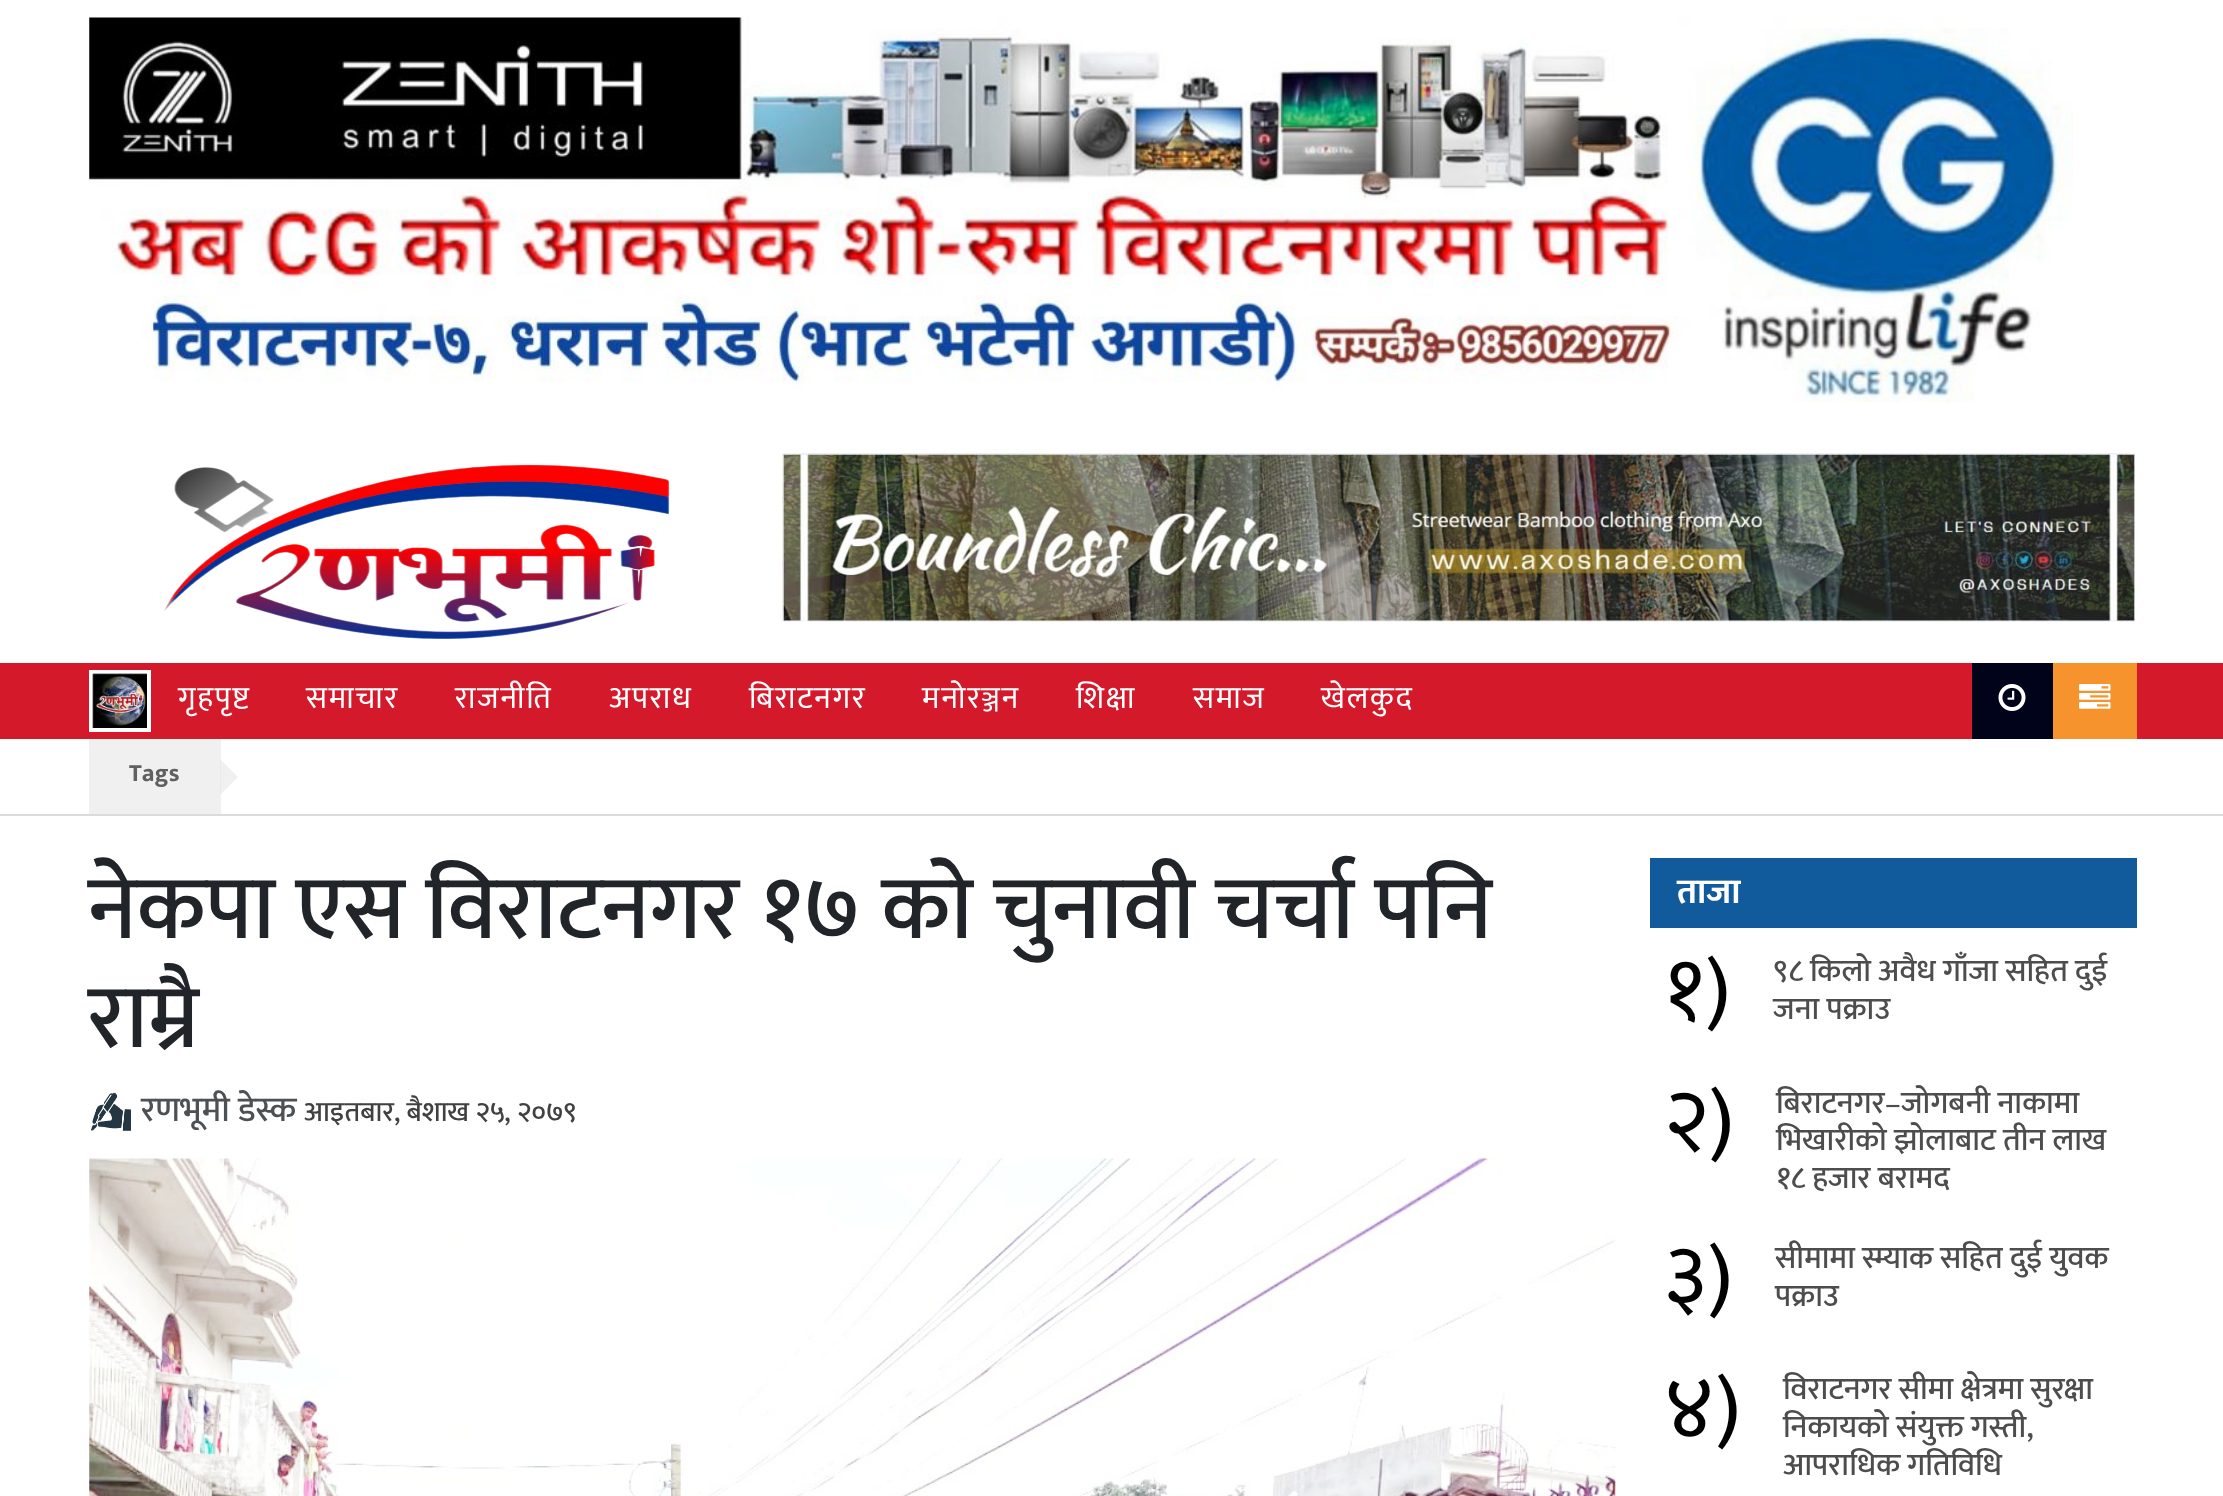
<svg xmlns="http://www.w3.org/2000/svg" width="2223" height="1496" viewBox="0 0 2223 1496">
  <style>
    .t1 { font: 31.5px Mukta; letter-spacing: 1.75px; fill: #fff; }
    .t2 { font: bold 25px Mukta; fill: #606060; }
    .t3 { font: 500 91px Mukta; fill: #212529; }
    .t4 { font: 500 35px Mukta; fill: #4d5154; }
    .t5 { font: 500 28px Mukta; fill: #414141; }
    .t6 { font: bold 35px Mukta; fill: #fff; }
    .t7 { font: 88px Mukta; fill: #000; }
    .t8 { font: 500 31.5px Mukta; fill: #4d4d4d; }
  </style>
  <rect width="100%" height="100%" fill="#fff"/>
  <image x="89" y="17" width="1984" height="386" href="images/1.png"/>
  <image x="164" y="464" width="506" height="175" href="images/2.png"/>
  <image x="782" y="453" width="1353" height="169" href="images/3.png"/>
  <rect x="0" y="663" width="2223" height="76" fill="#d4192b"/>
  <rect x="89" y="670" width="62" height="62" fill="#fff"/>
  <image x="92" y="673" width="55" height="55" href="images/4.png"/>
  <text x="178" y="708" class="t1">गृहपृष्ट</text>
  <text x="306" y="708" class="t1">समाचार</text>
  <text x="455" y="708" class="t1">राजनीति</text>
  <text x="609" y="708" class="t1">अपराध</text>
  <text x="749" y="708" class="t1">बिराटनगर</text>
  <text x="922" y="708" class="t1">मनोरञ्जन</text>
  <text x="1076" y="708" class="t1">शिक्षा</text>
  <text x="1193" y="708" class="t1">समाज</text>
  <text x="1321" y="708" class="t1">खेलकुद</text>
  <rect x="1972" y="663" width="81" height="76" fill="#000319"/>
  <image x="1998" y="684" width="28" height="27" href="images/5.png"/>
  <rect x="2053" y="663" width="84" height="76" fill="#f7932d"/>
  <image x="2079" y="684" width="32" height="25" href="images/6.png"/>
  <rect x="0" y="814" width="2223" height="2" fill="#dbdbdb"/>
  <rect x="89" y="739" width="132" height="75" fill="#f0f0f0"/>
  <text x="129" y="781" class="t2">Tags</text>
  <path d="M220.5 794.5V759.5L238 777Z" fill="#0000000f"/>
  <text x="88" y="938" class="t3">नेकपा एस विराटनगर १७ को चुनावी चर्चा पनि</text>
  <text x="88" y="1047" class="t3">राम्रै</text>
  <image x="91" y="1092" width="40" height="39" href="images/7.png"/>
  <text x="141" y="1121" class="t4">रणभूमी डेस्क</text>
  <text x="304" y="1121" class="t5">आइतबार, बैशाख २५, २०७९</text>
  <image x="89" y="1158" width="1527" height="338" href="images/8.png"/>
  <rect x="1650" y="858" width="487" height="70" fill="#115b9d"/>
  <text x="1677" y="903" class="t6">ताजा</text>
  <text x="1664" y="1018" class="t7">१)</text>
  <text x="1773" y="981" class="t8">९८ किलो अवैध गाँजा सहित दुई</text>
  <text x="1773" y="1019" class="t8">जना पक्राउ</text>
  <text x="1664" y="1149" class="t7">२)</text>
  <text x="1776" y="1113" class="t8">बिराटनगर–जोगबनी नाकामा</text>
  <text x="1776" y="1150" class="t8">भिखारीको झोलाबाट तीन लाख</text>
  <text x="1776" y="1188" class="t8">१८ हजार बरामद</text>
  <text x="1664" y="1305" class="t7">३)</text>
  <text x="1775" y="1268" class="t8">सीमामा स्म्याक सहित दुई युवक</text>
  <text x="1775" y="1306" class="t8">पक्राउ</text>
  <text x="1664" y="1436" class="t7">४)</text>
  <text x="1783" y="1399" class="t8">विराटनगर सीमा क्षेत्रमा सुरक्षा</text>
  <text x="1783" y="1437" class="t8">निकायको संयुक्त गस्ती,</text>
  <text x="1783" y="1475" class="t8">आपराधिक गतिविधि</text>
</svg>
